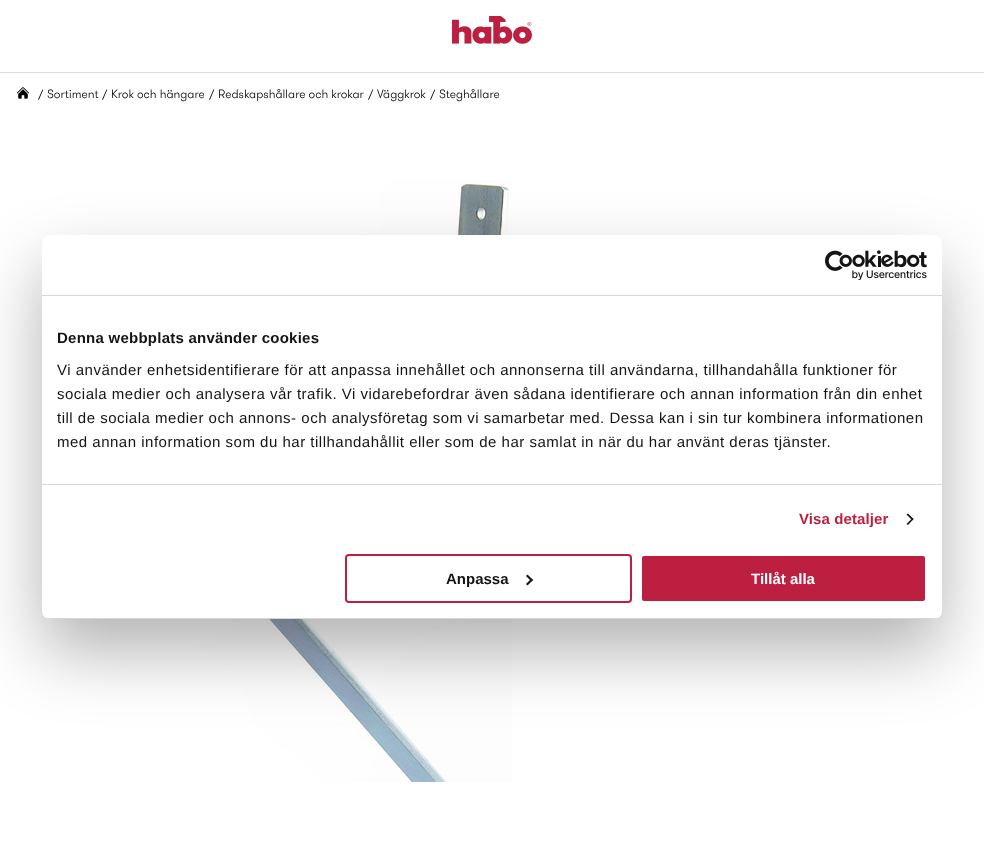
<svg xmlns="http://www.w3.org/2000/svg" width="984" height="854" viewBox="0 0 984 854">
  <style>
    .t1 { font: 300 12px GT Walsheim; fill: #000; }
    .t2 { font: bold 15px Liberation Sans; letter-spacing: 0.25px; fill: #141414; }
    .t3 { font: 15px Liberation Sans; letter-spacing: 0.5px; fill: #141414; }
    .t4 { font: bold 15px Liberation Sans; letter-spacing: 0.1px; fill: #bc1f40; }
    .t5 { font: bold 15px Liberation Sans; fill: #141414; }
    .t6 { font: bold 15px Liberation Sans; fill: #fff; }
  </style>
  <defs>
    <clipPath id="clip1"><rect x="42" y="235" width="900" height="384" rx="8"/></clipPath>
  </defs>
  <rect width="100%" height="100%" fill="#fff"/>
  <image x="452" y="16" width="80" height="28" href="images/1.png"/>
  <rect x="0" y="72" width="984" height="1" fill="#ddd"/>
  <image x="17" y="87" width="12" height="12" href="images/2.png"/>
  <text x="38" y="99" class="t1">/</text>
  <text x="47" y="98" class="t1">Sortiment</text>
  <text x="102" y="99" class="t1">/</text>
  <text x="111" y="98" class="t1">Krok och hängare</text>
  <text x="209" y="99" class="t1">/</text>
  <text x="218" y="98" class="t1">Redskapshållare och krokar</text>
  <text x="368" y="99" class="t1">/</text>
  <text x="377" y="98" class="t1">Väggkrok</text>
  <text x="430" y="99" class="t1">/</text>
  <text x="439" y="98" class="t1">Steghållare</text>
  <image x="73" y="179" width="439" height="603" href="images/3.png"/>
  <rect x="42" y="267" width="900" height="384" rx="8" fill="#0000004d" filter="blur(34px)"/>
  <rect x="42" y="235" width="900" height="384" rx="8" fill="#fff"/>
  <rect x="42" y="295" width="900" height="1" fill="#d6d6d6"/>
  <image x="825" y="250" width="102" height="30" href="images/4.png"/>
  <rect x="42" y="484" width="900" height="1" fill="#d6d6d6"/>
  <text x="57" y="343" class="t2">Denna webbplats använder cookies</text>
  <text x="57" y="375" class="t3">Vi använder enhetsidentifierare för att anpassa innehållet och annonserna till användarna, tillhandahålla funktioner för</text>
  <text x="57" y="399" class="t3">sociala medier och analysera vår trafik. Vi vidarebefordrar även sådana identifierare och annan information från din enhet</text>
  <text x="57" y="423" class="t3">till de sociala medier och annons- och analysföretag som vi samarbetar med. Dessa kan i sin tur kombinera informationen</text>
  <text x="57" y="447" class="t3">med annan information som du har tillhandahållit eller som de har samlat in när du har använt deras tjänster.</text>
  <text x="799" y="524" class="t4">Visa detaljer</text>
  <path d="M908 513.5L913.5 519L912.5 520.5L906.5 514.5Z" fill="#141414"/>
  <path d="M912.5 518L913.5 519L908 525L906.5 524Z" fill="#141414"/>
  <g clip-path="url(#clip1)">
    <rect x="42" y="618" width="900" height="1" fill="#d6d6d6"/>
  </g>
  <rect x="346" y="555" width="285" height="47" rx="3" fill="none" stroke="#bc1f40" stroke-width="2"/>
  <text x="446" y="584" class="t5">Anpassa</text>
  <path d="M527.5 574.5L533 580L531.5 581.5L526 576Z" fill="#141414"/>
  <path d="M531.5 578.5L533 580L527.5 585.5L526 584Z" fill="#141414"/>
  <rect x="641" y="555" width="285" height="47" rx="3" fill="#bc1f40" stroke="#fff" stroke-width="2"/>
  <text x="751" y="584" class="t6">Tillåt alla</text>
</svg>
